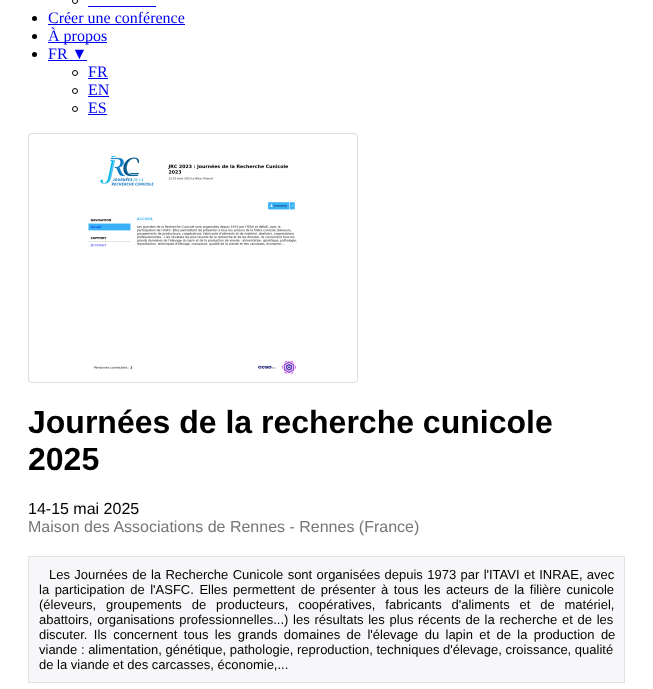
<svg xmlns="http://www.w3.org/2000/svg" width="653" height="689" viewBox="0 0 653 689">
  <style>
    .t1 { font: 16px Liberation Serif; fill: #00e; }
    .t2 { font: bold 32px Liberation Sans; fill: #000; }
    .t3 { font: 16px Liberation Sans; fill: #000; }
    .t4 { font: 16px Liberation Sans; fill: #767676; }
    .t5 { font: 13px Liberation Sans; fill: #000; }
  </style>
  <rect width="100%" height="100%" fill="#fff"/>
  <circle cx="75" cy="1" r="2.5" fill="none" stroke="#000"/>
  <rect x="88" y="6" width="68" height="1" fill="#00e"/>
  <circle cx="34.5" cy="18.5" r="2.5" fill="#000"/>
  <text x="48" y="23" class="t1">Créer une conférence</text>
  <rect x="48" y="24" width="137" height="1" fill="#00e"/>
  <circle cx="34.5" cy="36.5" r="2.5" fill="#000"/>
  <rect x="48" y="42" width="59" height="1" fill="#00e"/>
  <text x="48" y="41" class="t1">À propos</text>
  <circle cx="34.5" cy="54.5" r="2.5" fill="#000"/>
  <text x="48" y="59" class="t1">FR ▼</text>
  <rect x="48" y="60" width="39" height="1" fill="#00e"/>
  <circle cx="75" cy="73" r="2.5" fill="none" stroke="#000"/>
  <text x="88" y="77" class="t1">FR</text>
  <rect x="88" y="78" width="20" height="1" fill="#00e"/>
  <circle cx="75" cy="91" r="2.5" fill="none" stroke="#000"/>
  <text x="88" y="95" class="t1">EN</text>
  <rect x="88" y="96" width="21" height="1" fill="#00e"/>
  <circle cx="75" cy="109" r="2.5" fill="none" stroke="#000"/>
  <text x="88" y="113" class="t1">ES</text>
  <rect x="88" y="114" width="19" height="1" fill="#00e"/>
  <rect x="28.5" y="133.5" width="329" height="249" rx="3.5" fill="none" stroke="#ddd"/>
  <image x="88" y="155" width="209" height="219" href="images/1.png"/>
  <text x="28" y="433" class="t2">Journées de la recherche cunicole</text>
  <text x="28" y="470" class="t2">2025</text>
  <text x="28" y="514" class="t3">14-15 mai 2025</text>
  <text x="28" y="532" class="t4">Maison des Associations de Rennes - Rennes (France)</text>
  <rect x="28.5" y="556.5" width="596" height="126" fill="#f7f7f9" stroke="#e1e1e8"/>
  <text x="49" y="579" word-spacing="0.75" class="t5">Les Journées de la Recherche Cunicole sont organisées depuis 1973 par l'ITAVI et INRAE, avec</text>
  <text x="39" y="594" word-spacing="1.9" class="t5">la participation de l'ASFC. Elles permettent de présenter à tous les acteurs de la filière cunicole</text>
  <text x="39" y="609" word-spacing="6.25" class="t5">(éleveurs, groupements de producteurs, coopératives, fabricants d'aliments et de matériel,</text>
  <text x="39" y="624" word-spacing="1.1" class="t5">abattoirs, organisations professionnelles...) les résultats les plus récents de la recherche et de les</text>
  <text x="39" y="639" word-spacing="2.75" class="t5">discuter. Ils concernent tous les grands domaines de l'élevage du lapin et de la production de</text>
  <text x="39" y="654" class="t5">viande : alimentation, génétique, pathologie, reproduction, techniques d'élevage, croissance, qualité</text>
  <text x="39" y="669" class="t5">de la viande et des carcasses, économie,...</text>
</svg>
